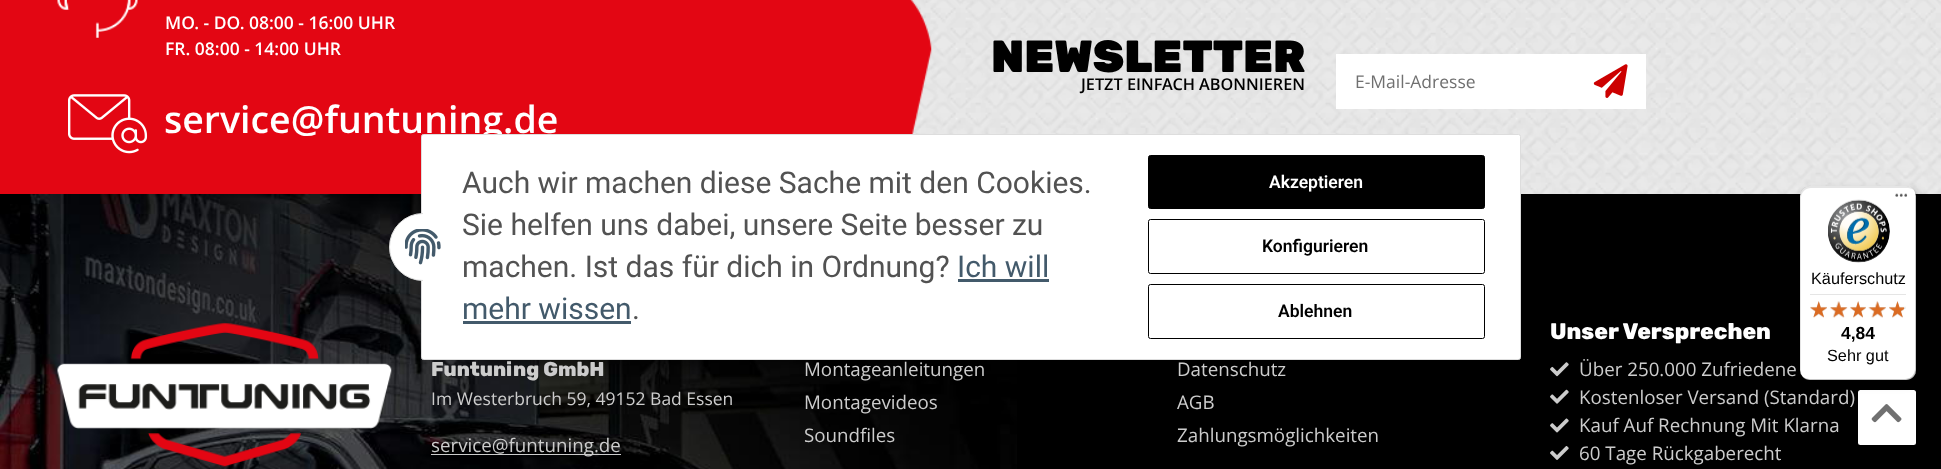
<svg xmlns="http://www.w3.org/2000/svg" width="1941" height="469" viewBox="0 0 1941 469">
  <style>
    .t1 { font: 600 17.5px Open Sans; fill: #fff; }
    .t2 { font: 600 37.5px Open Sans; fill: #fff; }
    .t3 { font: 900 45px Rubik; fill: #000; }
    .t4 { font: 600 16.25px Open Sans; fill: #000; }
    .t5 { font: 17.5px Open Sans; fill: #707070; }
    .t6 { font: 30px Roboto; fill: #525252; }
    .t7 { font: 30px Roboto; fill: #435a6b; }
    .t8 { font: 600 17.5px Roboto; fill: #fff; }
    .t9 { font: 600 17.5px Roboto; fill: #000; }
    .t10 { font: 16.25px Liberation Sans; fill: #000; }
    .t11 { font: bold 17.5px Liberation Sans; fill: #000; }
    .t12 { font: 800 20px Rubik; fill: #ccc; }
    .t13 { font: 17.5px Open Sans; fill: #ccc; }
    .t14 { font: 18.75px Open Sans; fill: #ccc; }
    .t15 { font: 800 22.5px Rubik; fill: #fff; }
  </style>
  <rect width="100%" height="100%" fill="#fff"/>
  <image x="909" y="0" width="1032" height="194" href="images/1.png"/>
  <image x="0" y="0" width="932" height="194" href="images/2.png"/>
  <image x="57" y="0" width="81" height="38" href="images/3.png"/>
  <text x="165" y="29" class="t1">MO. - DO. 08:00 - 16:00 UHR</text>
  <text x="165" y="55" class="t1">FR. 08:00 - 14:00 UHR</text>
  <image x="68" y="94" width="80" height="60" href="images/4.png"/>
  <text x="164" y="133" class="t2">service@funtuning.de</text>
  <text x="991" y="72" class="t3">NEWSLETTER</text>
  <text x="1081" y="90" class="t4">JETZT EINFACH ABONNIEREN</text>
  <rect x="1336" y="54" width="310" height="55" fill="#fff"/>
  <text x="1355" y="88" class="t5">E-Mail-Adresse</text>
  <image x="1593" y="64" width="35" height="34" href="images/5.png"/>
  <rect x="1017" y="194" width="924" height="275" fill="#000"/>
  <image x="0" y="194" width="1017" height="275" href="images/19.png"/>
  <rect x="476" y="324" width="989" height="40" rx="20" fill="#00000073" filter="blur(6px)"/>
  <rect x="421.5" y="134.5" width="1099" height="225" rx="2" fill="#fff" stroke="#ddd"/>
  <rect x="389.5" y="213.5" width="68" height="67" rx="33.5" fill="#fff" stroke="#ddd"/>
  <rect x="423" y="213" width="35" height="68" fill="#fff"/>
  <image x="405" y="229" width="36" height="36" href="images/6.png"/>
  <text x="462" y="193" class="t6">Auch wir machen diese Sache mit den Cookies.</text>
  <text x="462" y="235" class="t6">Sie helfen uns dabei, unsere Seite besser zu</text>
  <text x="462" y="277" class="t6">machen. Ist das für dich in Ordnung?</text>
  <text x="957" y="277" class="t7">Ich will</text>
  <rect x="958" y="279" width="91" height="3" fill="#435a6b"/>
  <text x="462" y="319" class="t7">mehr wissen</text>
  <rect x="463" y="321" width="168" height="3" fill="#435a6b"/>
  <text x="632" y="319" class="t6">.</text>
  <rect x="1148.5" y="155.5" width="336" height="53" rx="2" fill="#000" stroke="#000"/>
  <text x="1269" y="188" class="t8">Akzeptieren</text>
  <rect x="1148.5" y="219.5" width="336" height="54" rx="2" fill="none" stroke="#000"/>
  <text x="1262" y="252" class="t9">Konfigurieren</text>
  <rect x="1148.5" y="284.5" width="336" height="54" rx="2" fill="none" stroke="#000"/>
  <text x="1278" y="317" class="t9">Ablehnen</text>
  <rect x="1858" y="390" width="58" height="55" rx="2.5" fill="#fff"/>
  <rect x="1804" y="190" width="116" height="194" rx="10" fill="#00000026" filter="blur(5px)"/>
  <rect x="1801" y="188" width="117" height="193" rx="10" fill="#00000026" filter="blur(1px)"/>
  <rect x="1800" y="186" width="116" height="194" rx="10" fill="#fff"/>
  <path d="M1811 188H1908C1910 188 1912 189 1914 190C1912 188 1909 186 1906 186H1810C1804 186 1800 190 1800 196V370C1800 373 1801 376 1803 378C1802 376 1801 374 1801 371V198C1801 192 1806 188 1811 188Z" fill="#0000001a"/>
  <path d="M1802 377C1804 379 1807 380 1810 380H1906C1912 380 1916 376 1916 370V196C1916 194 1915 191 1914 190C1915 191 1915 193 1915 195V369C1915 374 1911 379 1905 379H1809C1806 379 1804 378 1802 377Z" fill="#00000033"/>
  <image x="1895" y="193" width="13" height="4" href="images/7.png"/>
  <path d="M1802 376C1804 379 1807 380 1810 380H1906C1912 380 1916 376 1916 370V369C1916 375 1911 379 1906 379H1809C1807 379 1804 378 1802 376Z" fill="#32323233"/>
  <path d="M1802 376C1804 379 1807 380 1810 380H1906C1912 380 1916 376 1916 370V369C1916 375 1911 379 1906 379H1809C1807 379 1804 378 1802 376Z" fill="#ffffff4d"/>
  <image x="1828" y="199" width="62" height="64" href="images/8.png"/>
  <text x="1811" y="284" class="t10">Käuferschutz</text>
  <rect x="1810" y="294" width="96" height="1" fill="#e5e5e5"/>
  <image x="1810" y="301" width="17" height="16" href="images/9.png"/>
  <image x="1830" y="301" width="17" height="17" href="images/10.png"/>
  <image x="1850" y="301" width="16" height="17" href="images/11.png"/>
  <image x="1868" y="301" width="18" height="17" href="images/12.png"/>
  <image x="1889" y="301" width="17" height="17" href="images/13.png"/>
  <image x="1810" y="301" width="17" height="17" href="images/14.png"/>
  <image x="1830" y="301" width="18" height="17" href="images/15.png"/>
  <image x="1850" y="301" width="16" height="17" href="images/16.png"/>
  <image x="1868" y="301" width="18" height="17" href="images/17.png"/>
  <image x="1889" y="301" width="15" height="17" href="images/18.png"/>
  <text x="1841" y="339" class="t11">4,84</text>
  <text x="1827" y="361" class="t10">Sehr gut</text>
  <image x="57" y="323" width="335" height="144" href="images/20.png"/>
  <text x="431" y="376" class="t12">Funtuning GmbH</text>
  <text x="431" y="405" class="t13">Im Westerbruch 59, 49152 Bad Essen</text>
  <rect x="431" y="454" width="190" height="1" fill="#ccc"/>
  <text x="431" y="452" class="t14">service@funtuning.de</text>
  <text x="804" y="376" class="t14">Montageanleitungen</text>
  <text x="804" y="409" class="t14">Montagevideos</text>
  <text x="804" y="442" class="t14">Soundfiles</text>
  <text x="1177" y="376" class="t14">Datenschutz</text>
  <text x="1177" y="409" class="t14">AGB</text>
  <text x="1177" y="442" class="t14">Zahlungsmöglichkeiten</text>
  <text x="1550" y="339" class="t15">Unser Versprechen</text>
  <image x="1550" y="362" width="19" height="15" href="images/21.png"/>
  <text x="1579" y="376" class="t14">Über 250.000 Zufriedene</text>
  <image x="1550" y="389" width="19" height="15" href="images/22.png"/>
  <text x="1579" y="404" class="t14">Kostenloser Versand (Standard)</text>
  <image x="1550" y="418" width="19" height="15" href="images/23.png"/>
  <text x="1579" y="432" class="t14">Kauf Auf Rechnung Mit Klarna</text>
  <image x="1550" y="446" width="19" height="14" href="images/24.png"/>
  <text x="1579" y="460" class="t14">60 Tage Rückgaberecht</text>
  <image x="1871" y="404" width="31" height="19" href="images/25.png"/>
</svg>
